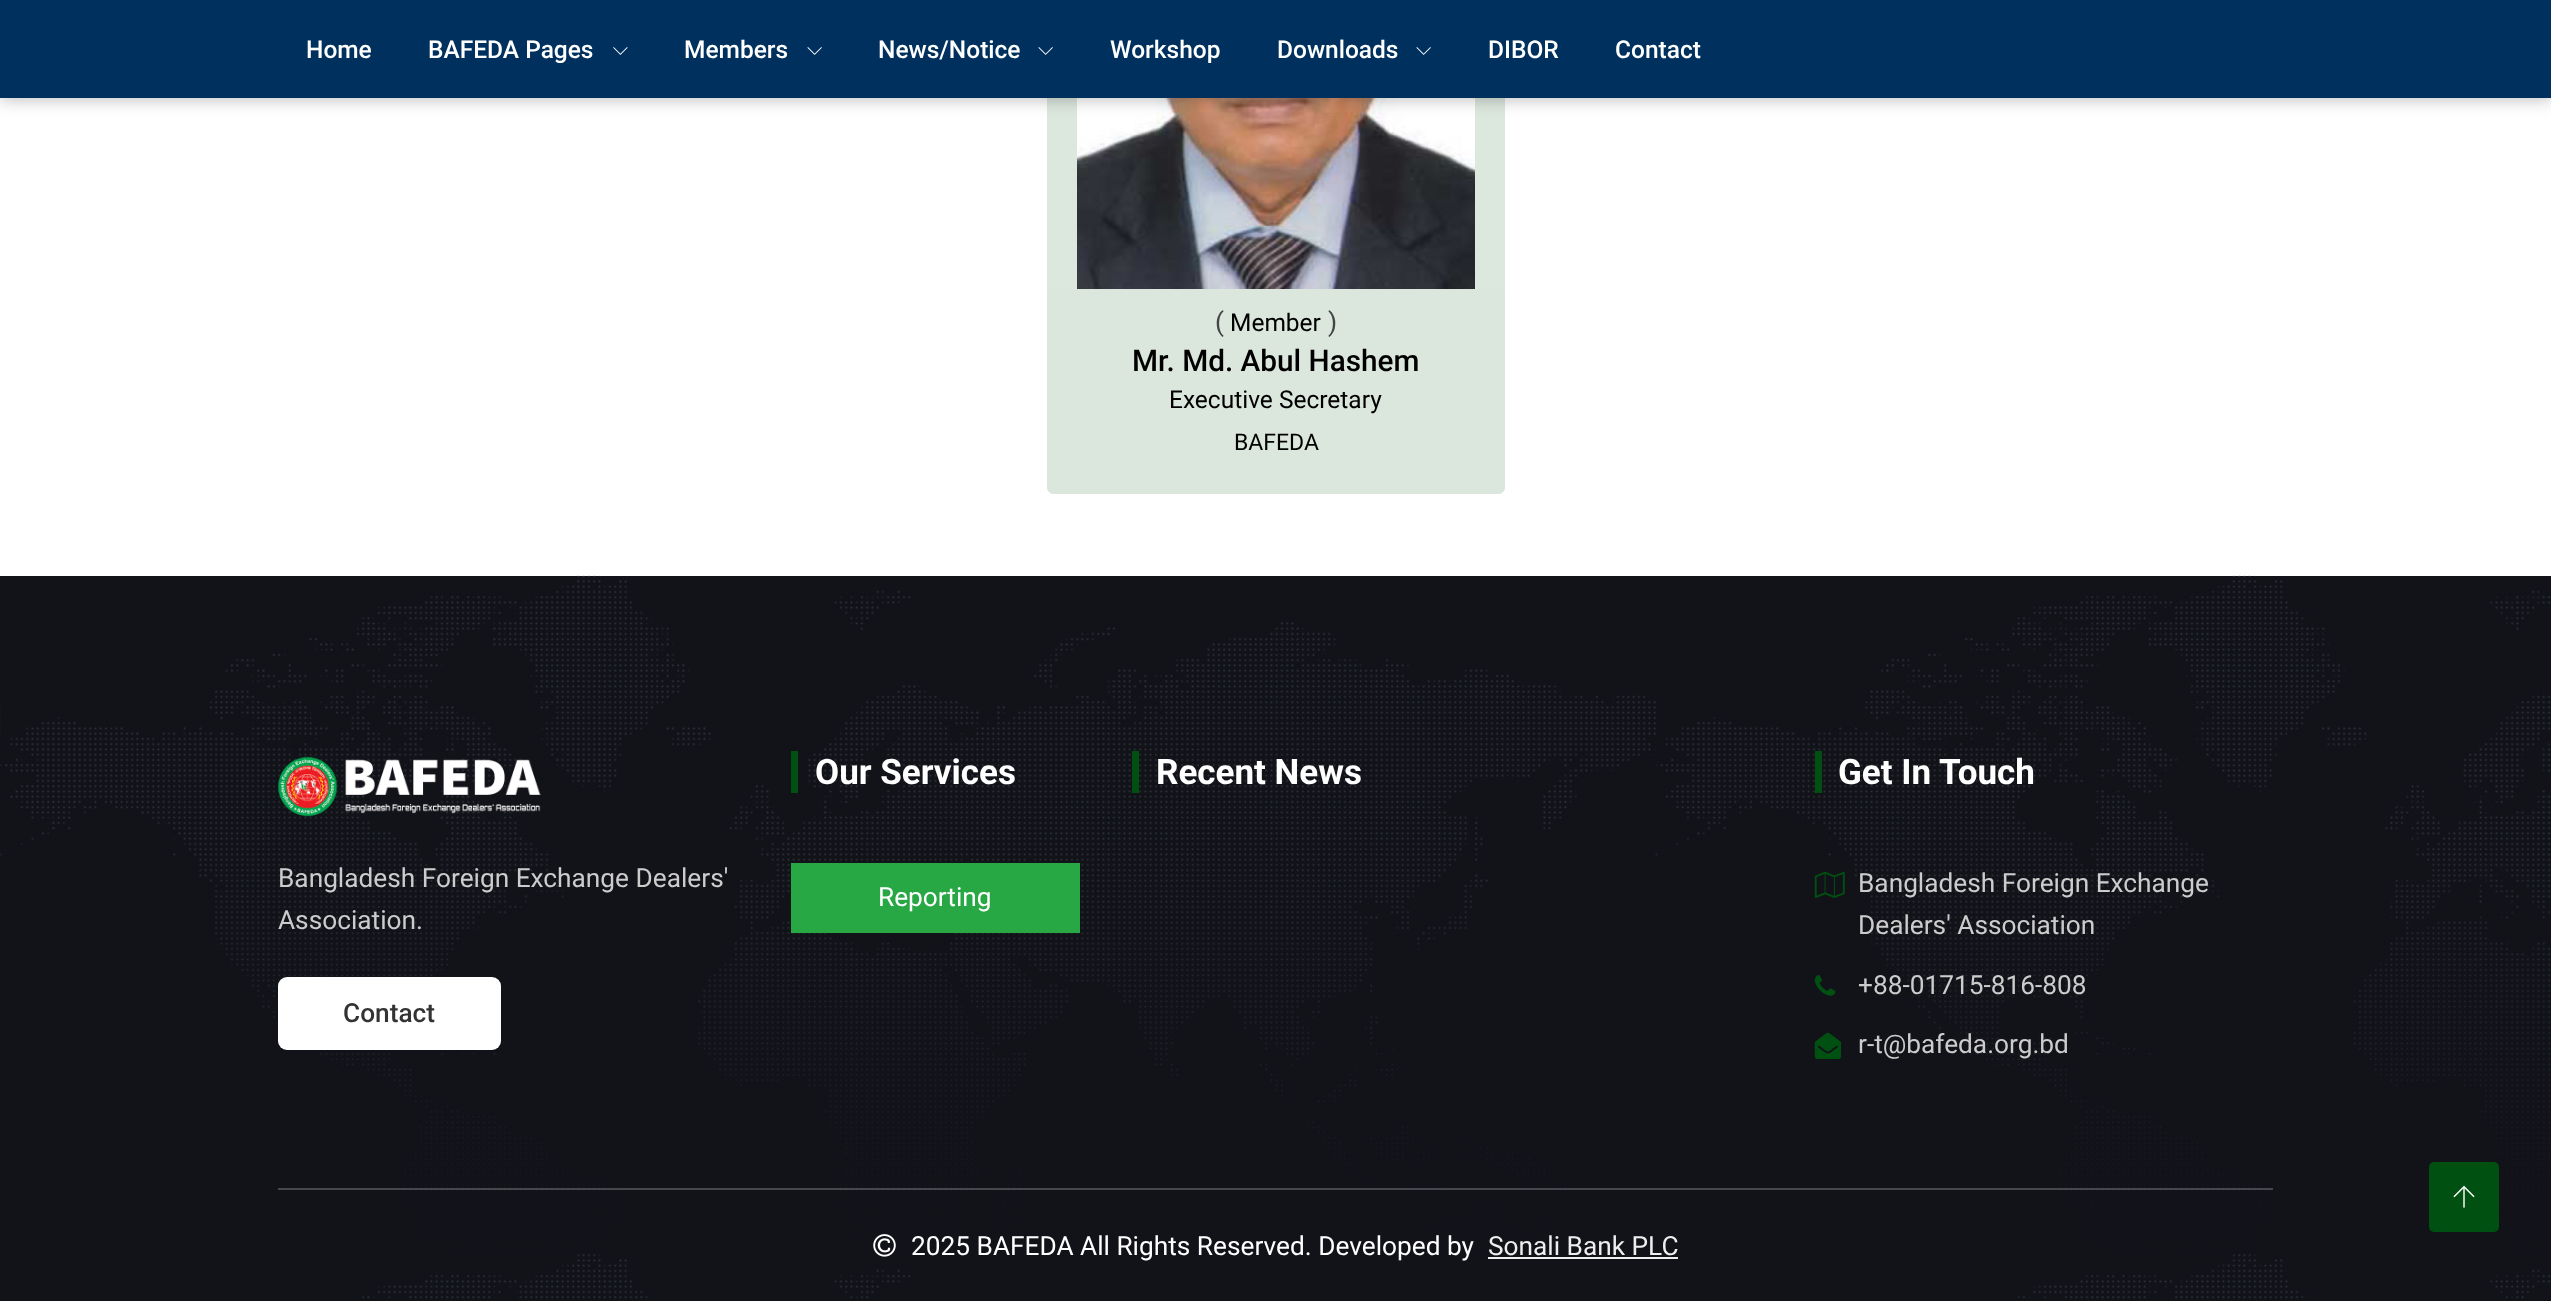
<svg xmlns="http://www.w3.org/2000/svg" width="2551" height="1301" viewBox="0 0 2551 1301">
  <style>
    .t1 { font: 500 24.5px Roboto; fill: #fff; }
    .t2 { font: 26.25px Roboto; fill: #424646; }
    .t3 { font: 24.5px Roboto; fill: #000; }
    .t4 { font: 500 29.75px Roboto; fill: #000; }
    .t5 { font: 23px Roboto; fill: #000; }
    .t6 { font: bold 35px Roboto; fill: #fff; }
    .t7 { font: 26.25px Roboto; fill: #fff; }
    .t8 { font: 26.25px Roboto; fill: #ccc; }
    .t9 { font: 500 26.25px Roboto; fill: #333; }
    .t10 { font: 26.25px Roboto; fill: #eee; }
  </style>
  <rect width="100%" height="100%" fill="#fff"/>
  <rect x="1047" y="-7" width="458" height="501" rx="7" fill="#dce7de"/>
  <image x="1077" y="98" width="398" height="191" href="images/3.png"/>
  <rect x="0" y="0" width="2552" height="98" fill="#0000004d" filter="blur(9px)"/>
  <rect x="0" y="0" width="2551" height="98" fill="#00315e"/>
  <text x="306" y="58" class="t1">Home</text>
  <text x="428" y="58" class="t1">BAFEDA Pages</text>
  <image x="613" y="47" width="15" height="8" href="images/1.png"/>
  <text x="684" y="58" class="t1">Members</text>
  <image x="807" y="47" width="15" height="8" href="images/2.png"/>
  <text x="878" y="58" class="t1">News/Notice</text>
  <image x="1038" y="47" width="15" height="8" href="images/2.png"/>
  <text x="1110" y="58" class="t1">Workshop</text>
  <text x="1277" y="58" class="t1">Downloads</text>
  <image x="1416" y="47" width="15" height="8" href="images/2.png"/>
  <text x="1488" y="58" class="t1">DIBOR</text>
  <text x="1615" y="58" class="t1">Contact</text>
  <path d="M1047 289H1505V487C1505 491 1502 494 1498 494H1054C1050 494 1047 491 1047 487Z" fill="#dbe6dd"/>
  <text x="1215" y="331" class="t2">(</text>
  <text x="1230" y="331" class="t3">Member</text>
  <text x="1328" y="331" class="t2">)</text>
  <text x="1132" y="371" class="t4">Mr. Md. Abul Hashem</text>
  <text x="1169" y="408" class="t3">Executive Secretary</text>
  <text x="1234" y="450" class="t5">BAFEDA</text>
  <rect x="0" y="576" width="2551" height="725" fill="#121219"/>
  <image x="0" y="575" width="2551" height="724" href="images/4.png"/>
  <rect x="791" y="751" width="7" height="42" fill="#005111"/>
  <text x="815" y="784" class="t6">Our Services</text>
  <rect x="791" y="863" width="289" height="70" fill="#28a745"/>
  <text x="878" y="906" class="t7">Reporting</text>
  <rect x="1132" y="751" width="7" height="42" fill="#005111"/>
  <text x="1156" y="784" class="t6">Recent News</text>
  <rect x="1815" y="751" width="7" height="42" fill="#005111"/>
  <text x="1838" y="784" class="t6">Get In Touch</text>
  <image x="1814" y="871" width="31" height="27" href="images/5.png"/>
  <text x="1858" y="892" class="t8">Bangladesh Foreign Exchange</text>
  <text x="1858" y="934" class="t8">Dealers' Association</text>
  <image x="1814" y="975" width="22" height="21" href="images/6.png"/>
  <text x="1858" y="994" class="t8">+88-01715-816-808</text>
  <image x="1814" y="1032" width="27" height="27" href="images/7.png"/>
  <text x="1858" y="1053" class="t8">r-t@bafeda.org.bd</text>
  <image x="278" y="756" width="263" height="61" href="images/8.png"/>
  <text x="278" y="887" class="t8">Bangladesh Foreign Exchange Dealers'</text>
  <text x="278" y="929" class="t8">Association.</text>
  <rect x="278" y="977" width="223" height="73" rx="9" fill="#fff"/>
  <text x="343" y="1022" class="t9">Contact</text>
  <rect x="278" y="1188" width="1995" height="2" fill="#eeeeee3d"/>
  <image x="873" y="1234" width="23" height="23" href="images/9.png"/>
  <text x="911" y="1255" class="t7">2025 BAFEDA All Rights Reserved. Developed by</text>
  <text x="1488" y="1255" class="t10">Sonali Bank PLC</text>
  <rect x="1488" y="1257" width="190" height="2" fill="#eee"/>
  <rect x="2429" y="1162" width="70" height="70" rx="5" fill="#005111"/>
  <image x="2453" y="1185" width="22" height="23" href="images/10.png"/>
</svg>
